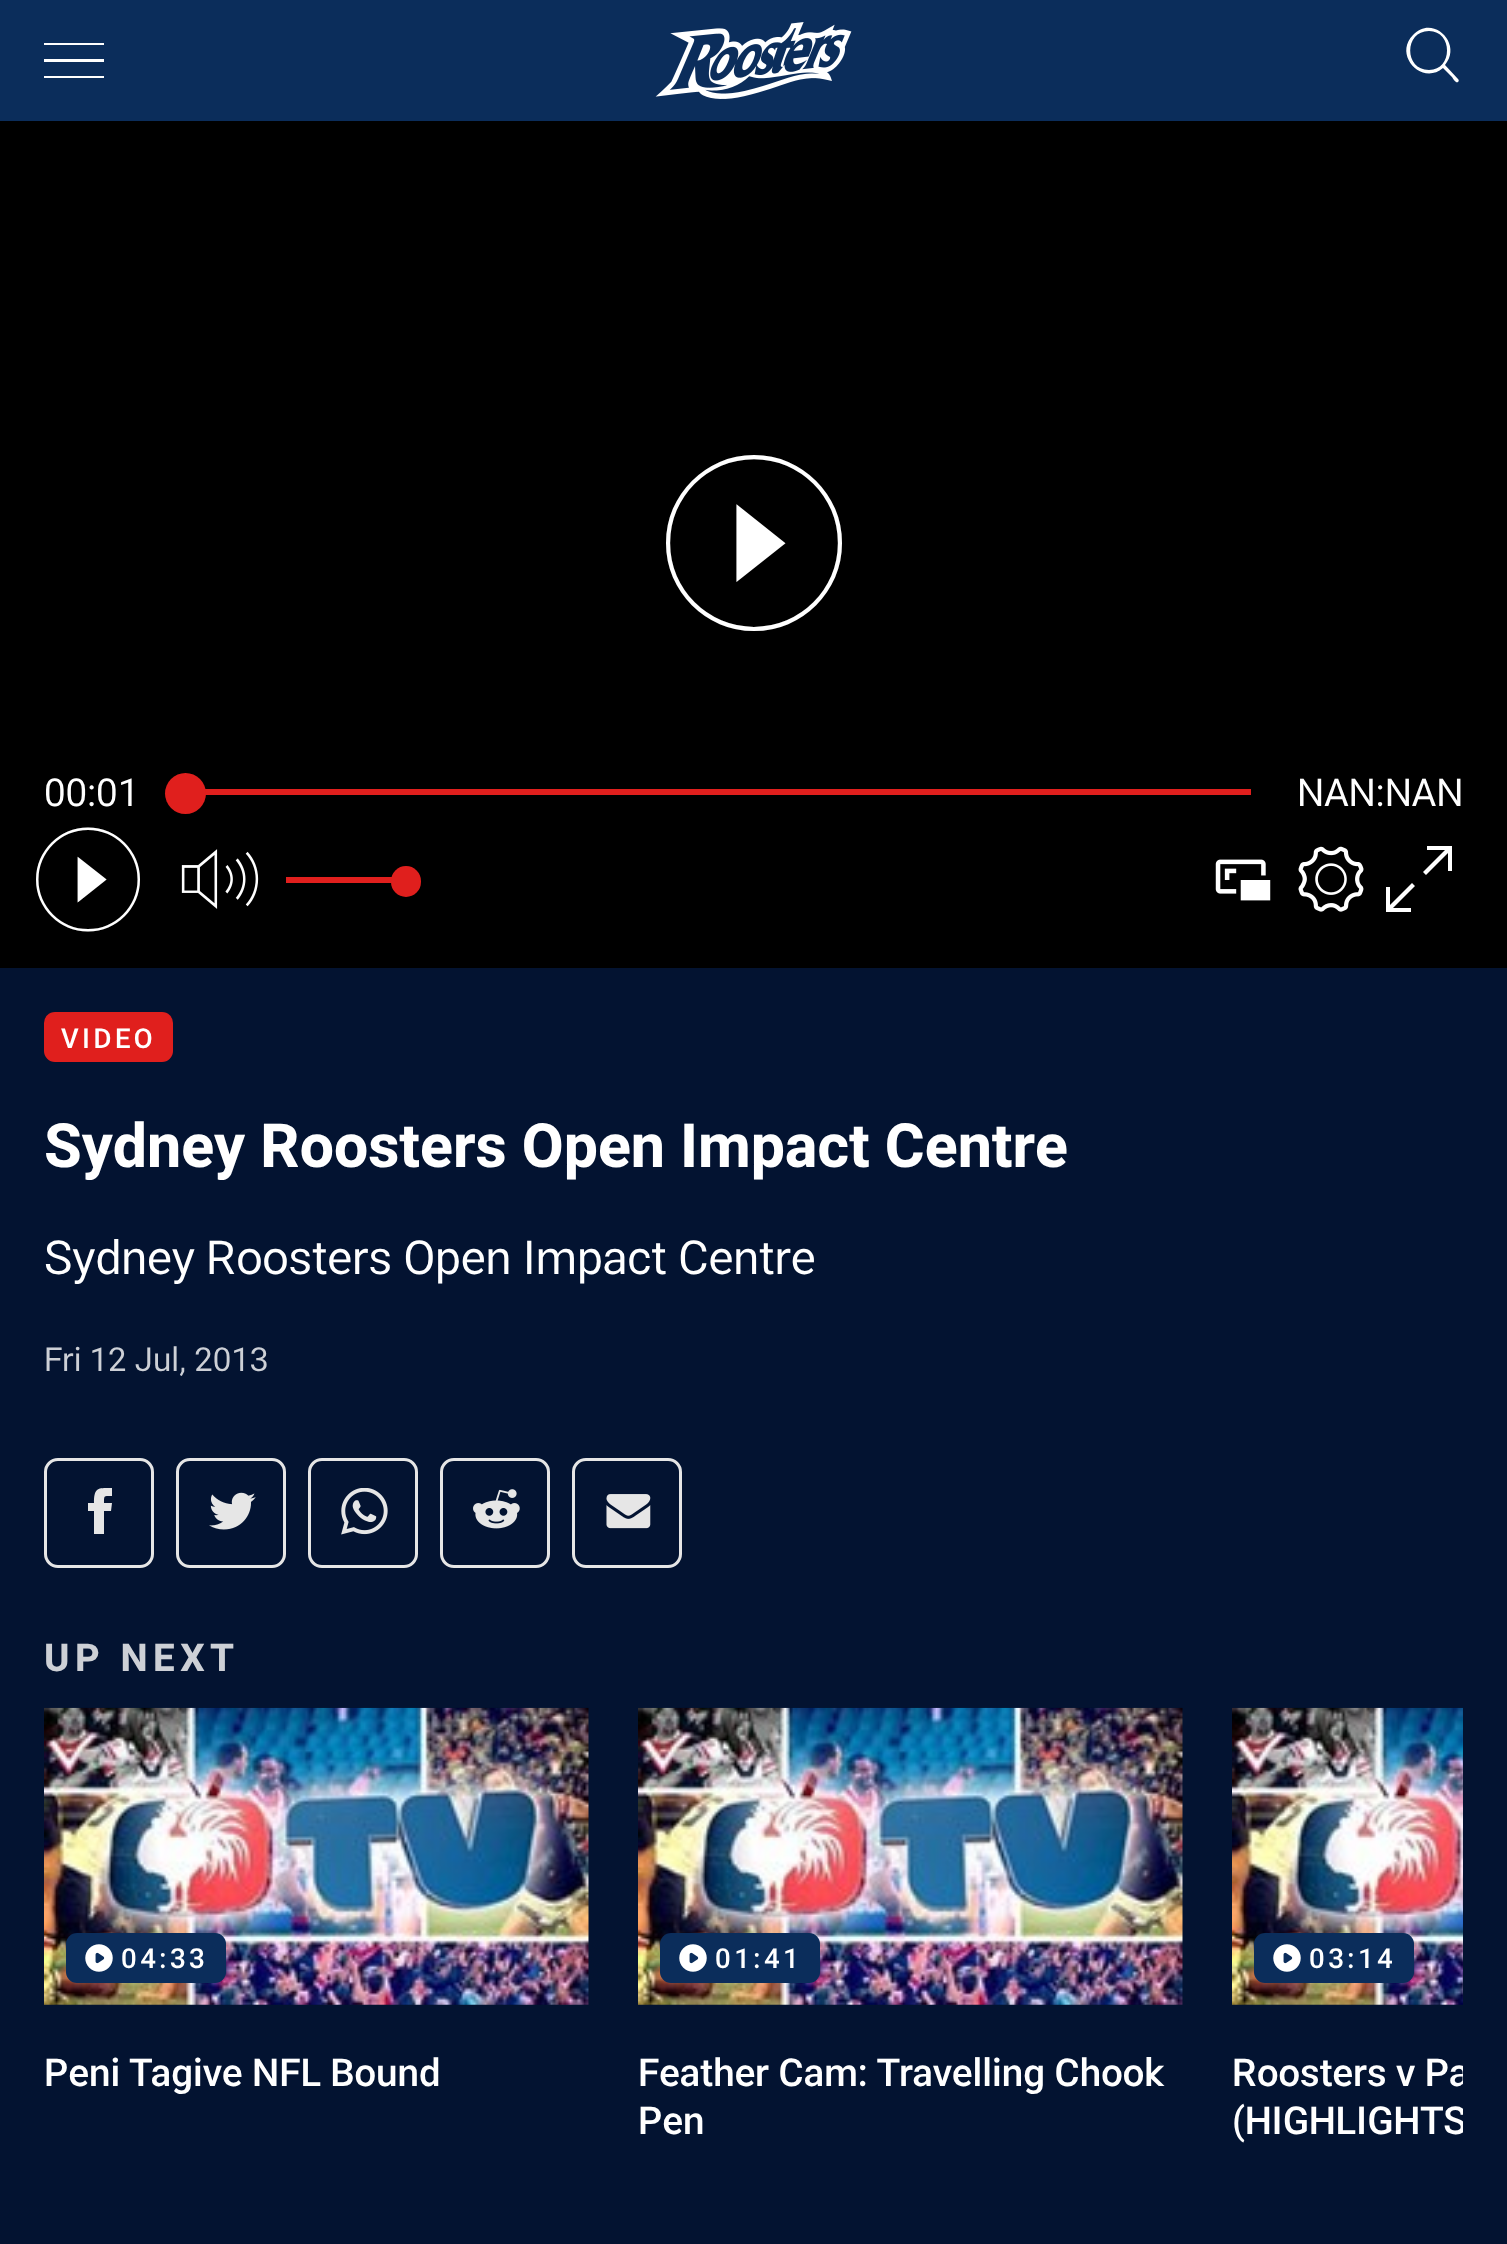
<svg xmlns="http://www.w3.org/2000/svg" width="1507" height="2244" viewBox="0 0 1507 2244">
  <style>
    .t1 { font: 176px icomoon; fill: #fff; }
    .t2 { font: 38.5px 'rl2'; fill: #fff; }
    .t3 { font: 104px icomoon; fill: #fff; }
    .t4 { font: 500 27.5px 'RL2'; letter-spacing: 3.5px; fill: #fff; }
    .t5 { font: bold 60.9px 'RL2'; fill: #fff; }
    .t6 { font: 46.75px 'rl2'; fill: #fff; }
    .t7 { font: 33px 'rl2'; fill: #cdd0d6; }
    .t8 { font: bold 38.5px 'RL2'; letter-spacing: 5.5px; fill: #cdd0d6; }
    .t9 { font: 500 38.5px 'RL2'; fill: #fff; }
  </style>
  <defs>
    <clipPath id="clip1"><rect x="44" y="1708" width="1419" height="495"/></clipPath>
  </defs>
  <rect width="100%" height="100%" fill="#031331"/>
  <rect x="0" y="0" width="1507" height="121" fill="#0b2d5b"/>
  <path d="M44 43H104V45H44ZM44 59H104V62H44ZM44 76H104V78H44Z" fill="#fff" fill-rule="evenodd"/>
  <image x="655" y="22" width="197" height="77" href="images/1.png"/>
  <path d="M1429 70C1404 70 1404 31 1429 31C1453 31 1453 70 1429 70M1458 79L1445 65C1463 44 1433 14 1413 35C1393 55 1422 86 1443 68L1452 77C1452 77 1456 84 1458 82C1459 81 1459 80 1458 79" fill="#fff" fill-rule="evenodd"/>
  <rect x="0" y="121" width="1507" height="847" fill="#000"/>
  <text x="666" y="620" class="t1">&gt;</text>
  <text x="44" y="806" class="t2">00:01</text>
  <rect x="205" y="789" width="1046" height="6" fill="#e01f1d"/>
  <circle cx="185.5" cy="793.5" r="20.5" fill="#e01f1d"/>
  <text x="1297" y="806" class="t2">NAN:NAN</text>
  <text x="36" y="925" class="t3">&gt;</text>
  <image x="181" y="849" width="78" height="60" href="images/2.png"/>
  <rect x="286" y="877" width="106" height="6" fill="#e01f1d"/>
  <rect x="391" y="866" width="30" height="31" rx="15" fill="#e01f1d"/>
  <image x="1215" y="859" width="56" height="42" href="images/3.png"/>
  <image x="1298" y="846" width="66" height="66" href="images/4.png"/>
  <path d="M1390 905L1412 883L1415 886L1393 908H1411V912H1386V887H1390ZM1449 846H1452V871H1448V853L1426 875L1423 872L1445 850H1427V846Z" fill="#fff"/>
  <rect x="44" y="1012" width="129" height="50" rx="11" fill="#e01f1d"/>
  <text x="61" y="1048" class="t4">VIDEO</text>
  <text x="44" y="1167" class="t5">Sydney Roosters Open Impact Centre</text>
  <text x="44" y="1274" class="t6">Sydney Roosters Open Impact Centre</text>
  <text x="44" y="1371" class="t7">Fri 12 Jul, 2013</text>
  <rect x="45.5" y="1459.5" width="107" height="107" rx="12.5" fill="none" stroke="#e6e6e6" stroke-width="3"/>
  <path d="M104 1534V1511H111L112 1503H104C104 1495 104 1496 112 1496V1488C98 1488 94 1487 94 1503H88V1511H94V1534Z" fill="#e6e6e6" fill-rule="evenodd"/>
  <rect x="177.5" y="1459.5" width="107" height="107" rx="12.5" fill="none" stroke="#e6e6e6" stroke-width="3"/>
  <image x="209" y="1492" width="47" height="38" href="images/5.png"/>
  <rect x="309.5" y="1459.5" width="107" height="107" rx="12.5" fill="none" stroke="#e6e6e6" stroke-width="3"/>
  <image x="341" y="1488" width="47" height="47" href="images/6.png"/>
  <rect x="441.5" y="1459.5" width="107" height="107" rx="12.5" fill="none" stroke="#e6e6e6" stroke-width="3"/>
  <image x="473" y="1489" width="47" height="40" href="images/7.png"/>
  <rect x="573.5" y="1459.5" width="107" height="107" rx="12.5" fill="none" stroke="#e6e6e6" stroke-width="3"/>
  <image x="606" y="1494" width="45" height="35" href="images/8.png"/>
  <text x="44" y="1671" class="t8">UP NEXT</text>
  <image x="44" y="1707" width="545" height="298" href="images/9.png"/>
  <rect x="66" y="1933" width="160" height="50" rx="11" fill="#0b2d5b"/>
  <image x="85" y="1944" width="28" height="28" href="images/10.png"/>
  <text x="121" y="1968" class="t4">04:33</text>
  <text x="44" y="2086" class="t9">Peni Tagive NFL Bound</text>
  <image x="638" y="1707" width="545" height="298" href="images/11.png"/>
  <rect x="660" y="1933" width="160" height="50" rx="11" fill="#0b2d5b"/>
  <image x="679" y="1944" width="28" height="28" href="images/10.png"/>
  <text x="715" y="1968" class="t4">01:41</text>
  <text x="638" y="2086" class="t9">Feather Cam: Travelling Chook</text>
  <text x="638" y="2134" class="t9">Pen</text>
  <image x="1232" y="1707" width="231" height="298" href="images/12.png"/>
  <rect x="1254" y="1933" width="160" height="50" rx="11" fill="#0b2d5b"/>
  <image x="1273" y="1944" width="28" height="28" href="images/10.png"/>
  <text x="1309" y="1968" class="t4">03:14</text>
  <g clip-path="url(#clip1)">
    <text x="1232" y="2086" class="t9">Roosters v Pa</text>
    <text x="1232" y="2134" class="t9">(HIGHLIGHTS</text>
  </g>
</svg>
